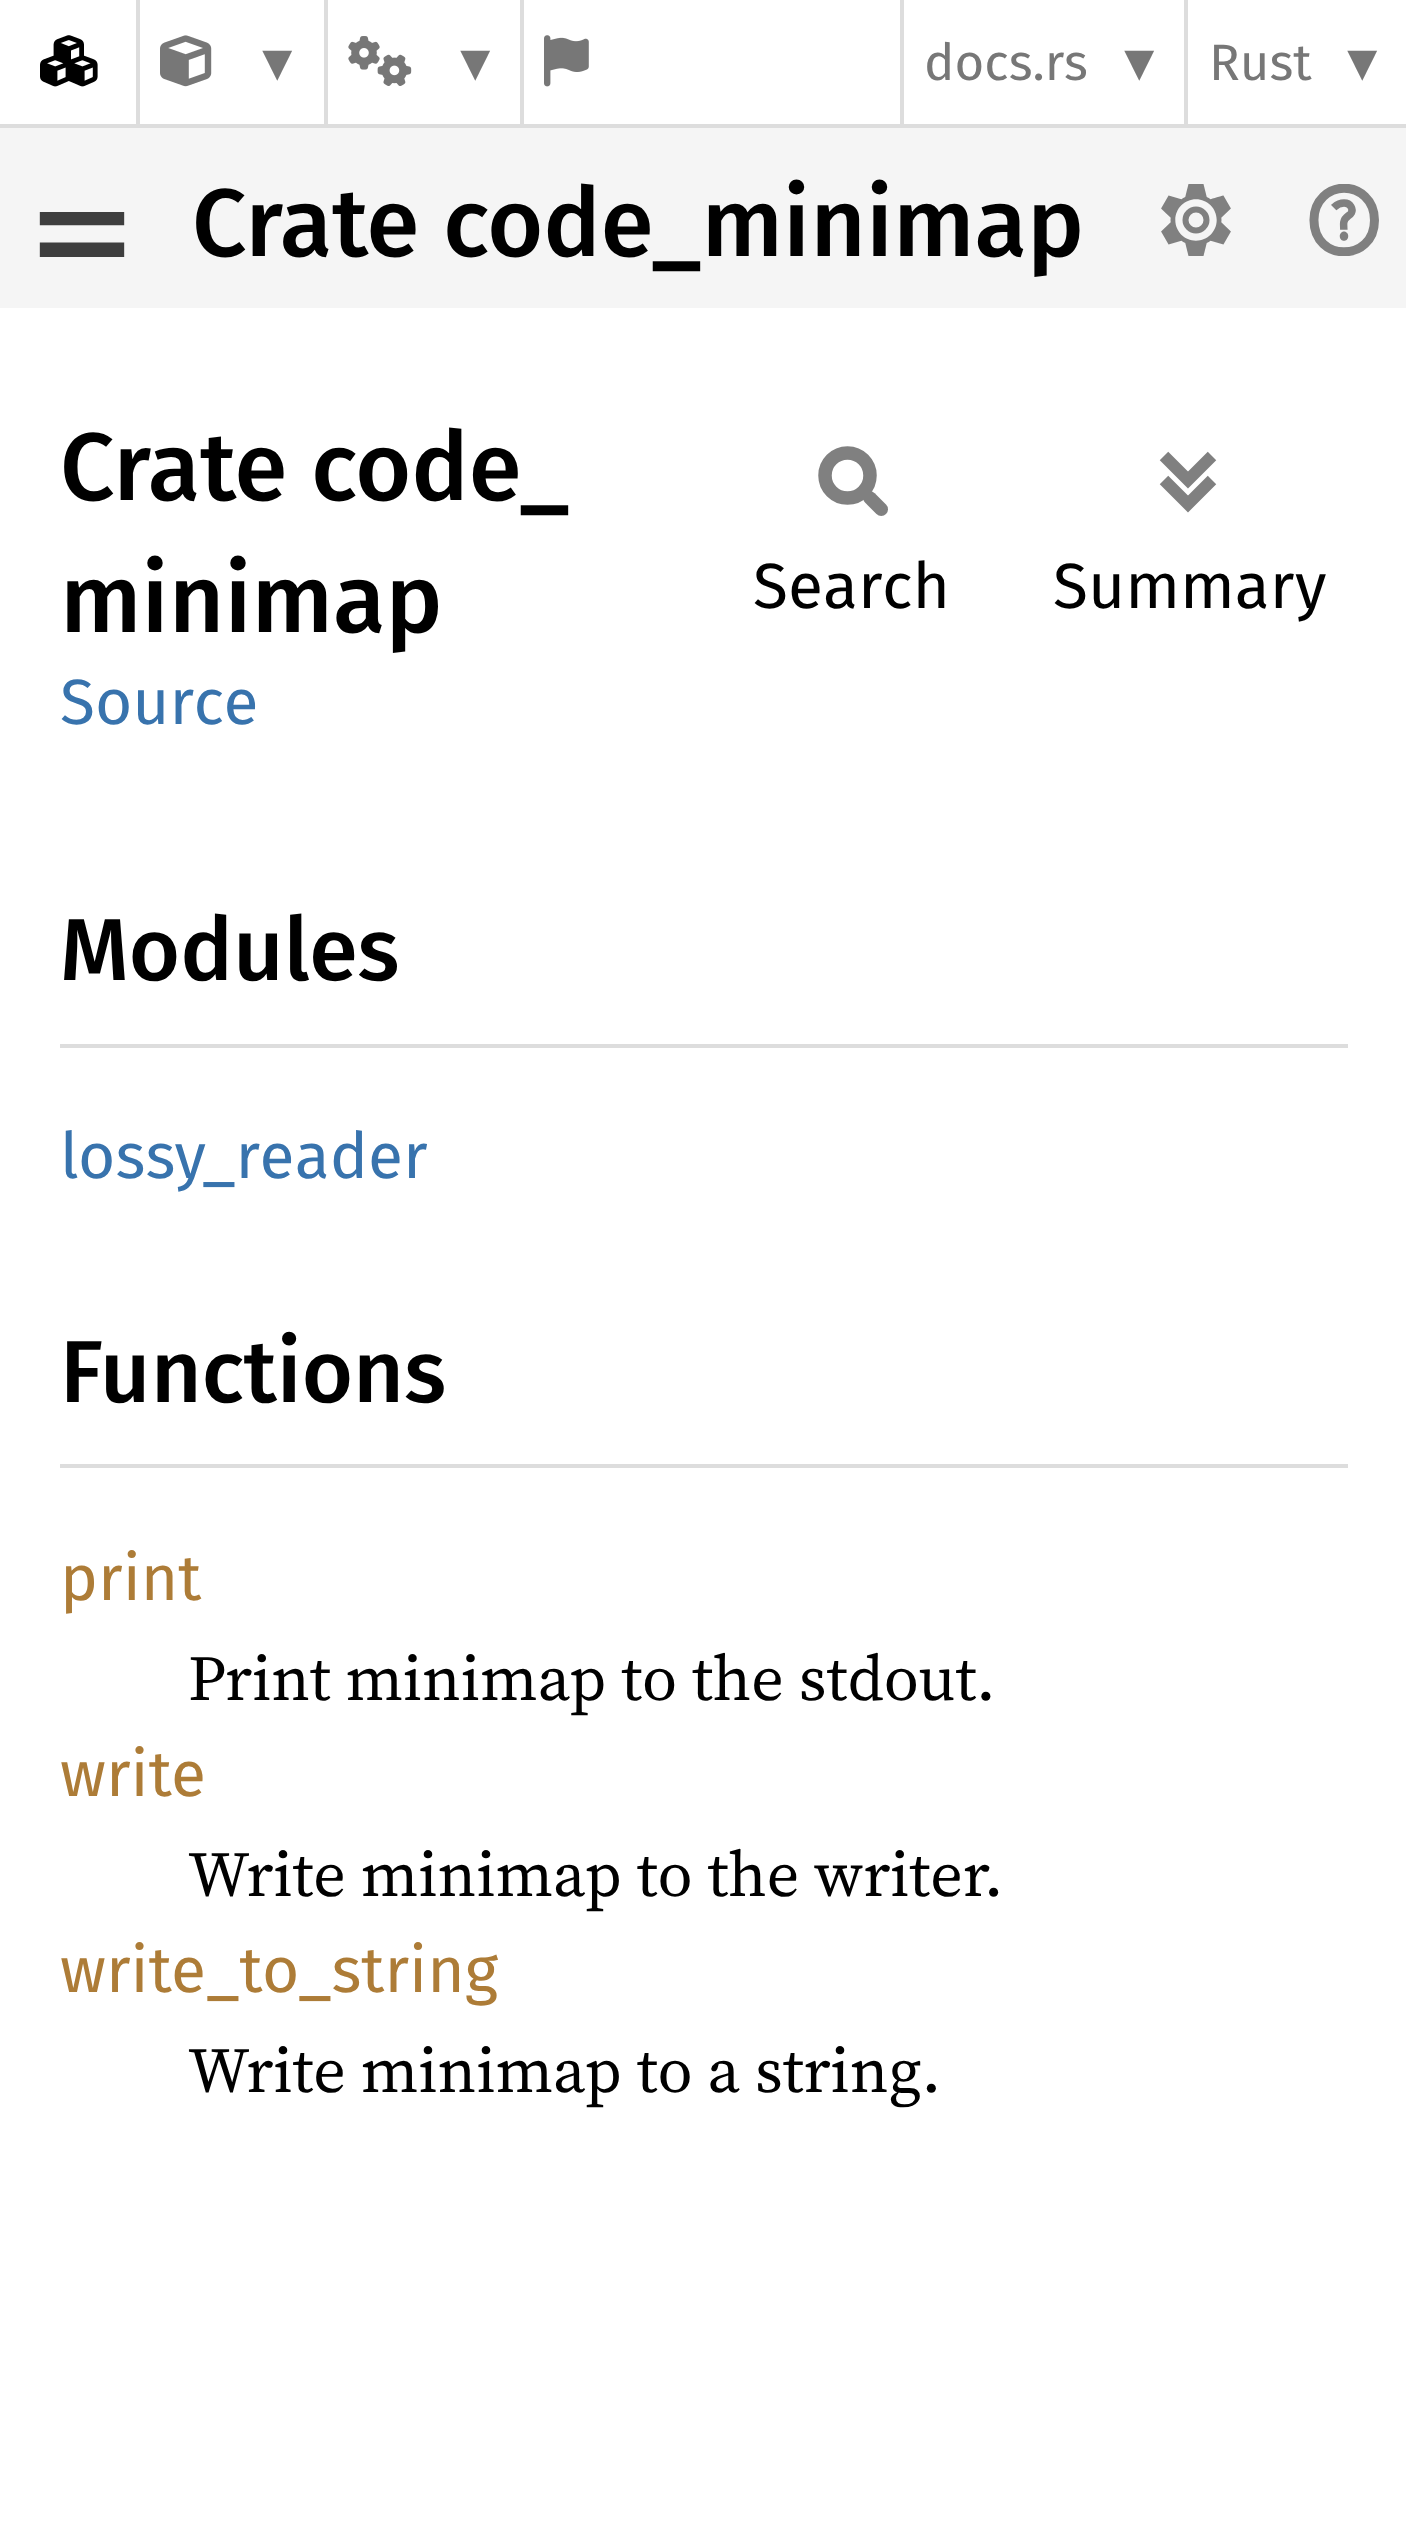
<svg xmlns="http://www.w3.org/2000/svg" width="1406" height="2539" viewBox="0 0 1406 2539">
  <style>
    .t1 { font: 51px Liberation Sans; fill: #777; }
    .t2 { font: 51px Fira Sans; fill: #777; }
    .t3 { font: 500 96px Fira Sans; fill: #000; }
    .t4 { font: 64px Fira Sans; fill: #000; }
    .t5 { font: 64px Fira Sans; fill: #3873ad; }
    .t6 { font: 500 88px Fira Sans; fill: #000; }
    .t7 { font: 64px Fira Sans; fill: #ad7c37; }
    .t8 { font: 64px 'Source Serif 4'; fill: #000; }
  </style>
  <rect width="100%" height="100%" fill="#fff"/>
  <rect x="0" y="124" width="1406" height="4" fill="#ddd"/>
  <image x="40" y="35" width="58" height="52" href="images/1.png"/>
  <rect x="136" y="0" width="4" height="124" fill="#ddd"/>
  <image x="160" y="35" width="52" height="52" href="images/2.png"/>
  <text x="252" y="80" class="t1">▼</text>
  <rect x="324" y="0" width="4" height="124" fill="#ddd"/>
  <image x="348" y="36" width="64" height="50" href="images/3.png"/>
  <text x="450" y="80" class="t1">▼</text>
  <rect x="520" y="0" width="4" height="124" fill="#ddd"/>
  <image x="544" y="35" width="45" height="52" href="images/4.png"/>
  <rect x="900" y="0" width="4" height="124" fill="#ddd"/>
  <text x="924" y="80" class="t2">docs.rs</text>
  <text x="1114" y="80" class="t1">▼</text>
  <rect x="1184" y="0" width="4" height="124" fill="#ddd"/>
  <text x="1209" y="80" class="t2">Rust</text>
  <text x="1337" y="80" class="t1">▼</text>
  <rect x="0" y="128" width="1406" height="180" fill="#f5f5f5"/>
  <image x="39" y="212" width="86" height="45" href="images/5.png"/>
  <text x="192" y="256" class="t3">Crate code_minimap</text>
  <image x="1161" y="184" width="70" height="72" href="images/6.png"/>
  <image x="1309" y="184" width="70" height="72" href="images/7.png"/>
  <text x="60" y="500" class="t3">Crate code_</text>
  <text x="60" y="632" class="t3">minimap</text>
  <image x="818" y="446" width="70" height="70" href="images/8.png"/>
  <text x="753" y="608" class="t4">Search</text>
  <image x="1159" y="451" width="58" height="62" href="images/9.png"/>
  <text x="1053" y="608" class="t4">Summary</text>
  <text x="60" y="724" class="t5">Source</text>
  <rect x="60" y="1044" width="1288" height="4" fill="#ddd"/>
  <text x="60" y="980" class="t6">Modules</text>
  <text x="60" y="1178" class="t5">lossy_reader</text>
  <rect x="60" y="1464" width="1288" height="4" fill="#ddd"/>
  <text x="60" y="1402" class="t6">Functions</text>
  <text x="60" y="1600" class="t7">print</text>
  <text x="188" y="1700" class="t8">Print minimap to the stdout.</text>
  <text x="60" y="1796" class="t7">write</text>
  <text x="188" y="1896" class="t8">Write minimap to the writer.</text>
  <text x="60" y="1992" class="t7">write_to_string</text>
  <text x="188" y="2092" class="t8">Write minimap to a string.</text>
</svg>
